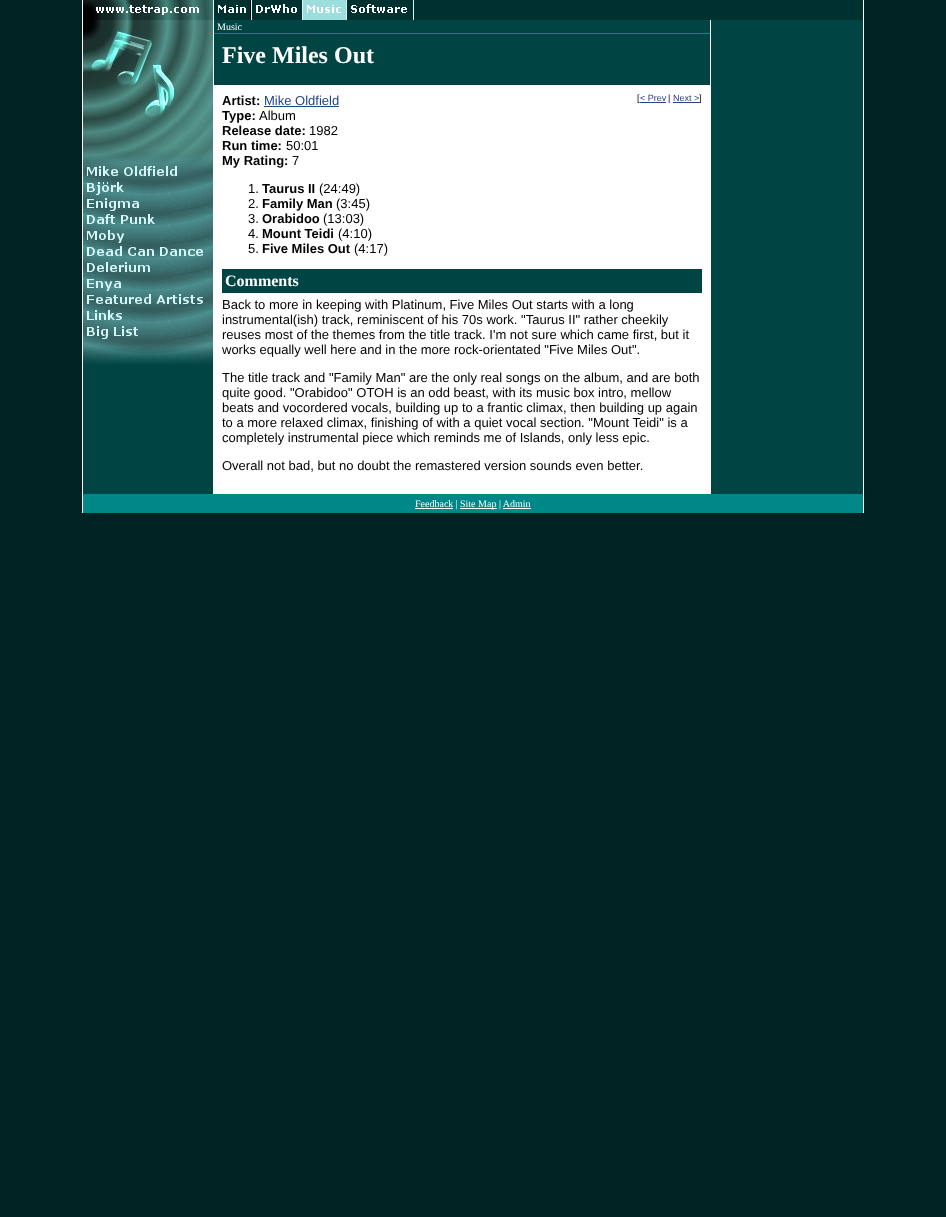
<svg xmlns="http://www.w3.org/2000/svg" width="946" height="1217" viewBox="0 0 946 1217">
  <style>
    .t1 { font: 10px Liberation Serif; fill: #fff; }
    .t2 { font: bold 24px Liberation Serif; fill: #fff; }
    .t3 { font: bold 13px Liberation Sans; fill: #000; }
    .t4 { font: 13px Liberation Sans; fill: #248; }
    .t5 { font: 13px Liberation Sans; fill: #000; }
    .t6 { font: 9px Liberation Sans; fill: #000; }
    .t7 { font: 9px Liberation Sans; fill: #248; }
    .t8 { font: bold 16px Liberation Serif; fill: #fff; }
  </style>
  <rect width="100%" height="100%" fill="#022"/>
  <rect x="863" y="0" width="1" height="513" fill="#fff"/>
  <rect x="82" y="0" width="1" height="513" fill="#fff"/>
  <rect x="414" y="0" width="449" height="20" fill="#003131"/>
  <image x="83" y="0" width="331" height="20" href="images/1.png"/>
  <rect x="83" y="365" width="130" height="129" fill="#044"/>
  <image x="83" y="20" width="130" height="130" href="images/2.png"/>
  <image x="83" y="150" width="130" height="215" href="images/3.png"/>
  <rect x="213" y="20" width="498" height="474" fill="#fff"/>
  <rect x="214" y="20" width="496" height="13" fill="#044"/>
  <rect x="214" y="33" width="496" height="1" fill="#088"/>
  <text x="217" y="30" class="t1">Music</text>
  <rect x="214" y="34" width="496" height="51" fill="#044"/>
  <text x="222" y="63" class="t2">Five Miles Out</text>
  <text x="222" y="105" class="t3">Artist:</text>
  <text x="264" y="105" class="t4">Mike Oldfield</text>
  <rect x="264" y="106" width="75" height="1" fill="#248"/>
  <text x="222" y="120" class="t3">Type:</text>
  <text x="259" y="120" class="t5">Album</text>
  <text x="222" y="135" class="t3">Release date:</text>
  <text x="309" y="135" class="t5">1982</text>
  <text x="222" y="150" class="t3">Run time:</text>
  <text x="286" y="150" class="t5">50:01</text>
  <text x="222" y="165" class="t3">My Rating:</text>
  <text x="292" y="165" class="t5">7</text>
  <text x="637" y="101" class="t6">[</text>
  <text x="640" y="101" class="t7">&lt; Prev</text>
  <rect x="640" y="102" width="26" height="1" fill="#248"/>
  <text x="668" y="101" class="t6">|</text>
  <text x="673" y="101" class="t7">Next &gt;</text>
  <rect x="673" y="102" width="26" height="1" fill="#248"/>
  <text x="699" y="101" class="t6">]</text>
  <text x="248" y="193" class="t5">1.</text>
  <text x="262" y="193" class="t3">Taurus II</text>
  <text x="319" y="193" class="t5">(24:49)</text>
  <text x="248" y="208" class="t5">2.</text>
  <text x="262" y="208" class="t3">Family Man</text>
  <text x="336" y="208" class="t5">(3:45)</text>
  <text x="248" y="223" class="t5">3.</text>
  <text x="262" y="223" class="t3">Orabidoo</text>
  <text x="323" y="223" class="t5">(13:03)</text>
  <text x="248" y="238" class="t5">4.</text>
  <text x="262" y="238" class="t3">Mount Teidi</text>
  <text x="338" y="238" class="t5">(4:10)</text>
  <text x="248" y="253" class="t5">5.</text>
  <text x="262" y="253" class="t3">Five Miles Out</text>
  <text x="354" y="253" class="t5">(4:17)</text>
  <rect x="222" y="269" width="480" height="24" fill="#044"/>
  <text x="225" y="286" class="t8">Comments</text>
  <text x="222" y="309" class="t5">Back to more in keeping with Platinum, Five Miles Out starts with a long</text>
  <text x="222" y="324" class="t5">instrumental(ish) track, reminiscent of his 70s work. "Taurus II" rather cheekily</text>
  <text x="222" y="339" class="t5">reuses most of the themes from the title track. I'm not sure which came first, but it</text>
  <text x="222" y="354" class="t5">works equally well here and in the more rock-orientated "Five Miles Out".</text>
  <text x="222" y="382" class="t5">The title track and "Family Man" are the only real songs on the album, and are both</text>
  <text x="222" y="397" class="t5">quite good. "Orabidoo" OTOH is an odd beast, with its music box intro, mellow</text>
  <text x="222" y="412" class="t5">beats and vocordered vocals, building up to a frantic climax, then building up again</text>
  <text x="222" y="427" class="t5">to a more relaxed climax, finishing of with a quiet vocal section. "Mount Teidi" is a</text>
  <text x="222" y="442" class="t5">completely instrumental piece which reminds me of Islands, only less epic.</text>
  <text x="222" y="470" class="t5">Overall not bad, but no doubt the remastered version sounds even better.</text>
  <rect x="711" y="20" width="152" height="474" fill="#044"/>
  <rect x="83" y="494" width="780" height="19" fill="#088"/>
  <rect x="415" y="508" width="38" height="1" fill="#fff"/>
  <text x="415" y="507" class="t1">Feedback |</text>
  <rect x="460" y="508" width="37" height="1" fill="#fff"/>
  <text x="460" y="507" class="t1">Site Map | Admin</text>
  <rect x="503" y="508" width="28" height="1" fill="#fff"/>
</svg>
